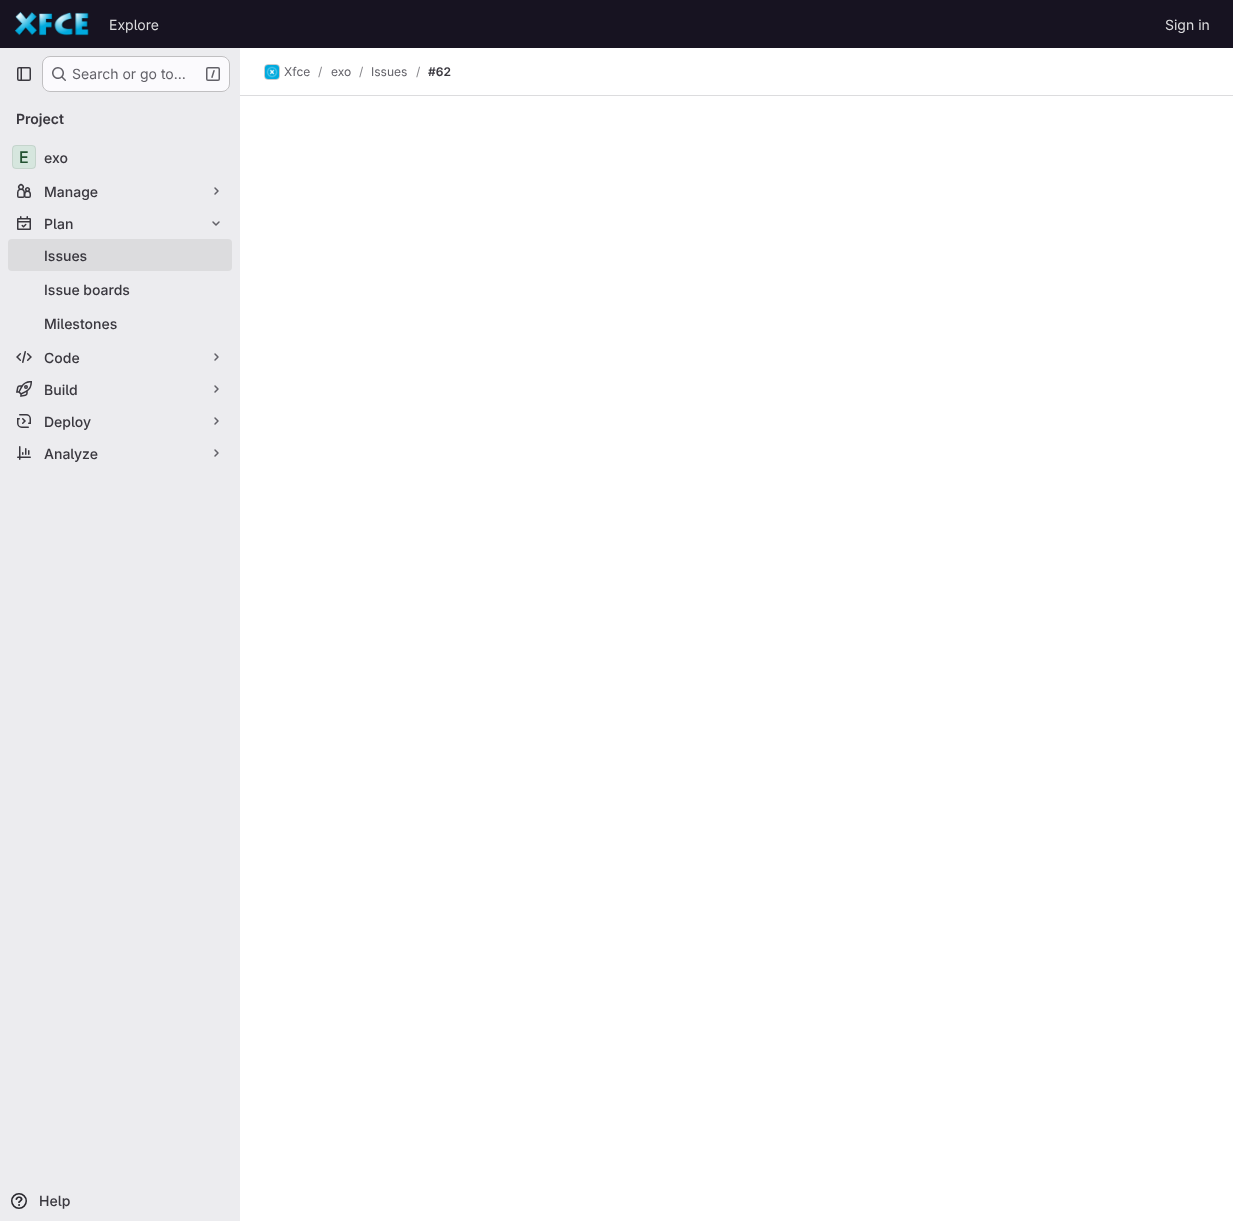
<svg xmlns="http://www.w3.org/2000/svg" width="1233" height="1221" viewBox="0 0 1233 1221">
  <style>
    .t1 { font: 14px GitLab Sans; fill: #dcdcde; }
    .t2 { font: 14px GitLab Sans; fill: #626168; }
    .t3 { font: 600 14px GitLab Sans; fill: #3a383f; }
    .t4 { font: 500 16px 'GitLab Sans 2'; fill: #225131; }
    .t5 { font: 500 14px GitLab Sans; fill: #3a383f; }
    .t6 { font: 12px GitLab Sans; fill: #626168; }
    .t7 { font: 12px GitLab Sans; fill: #89888d; }
    .t8 { font: 600 12px GitLab Sans; fill: #3a383f; }
  </style>
  <rect width="100%" height="100%" fill="#fff"/>
  <rect x="0" y="0" width="1233" height="48" fill="#171321"/>
  <image x="15" y="12" width="74" height="24" href="images/1.png"/>
  <text x="109" y="30" class="t1">Explore</text>
  <text x="1165" y="30" class="t1">Sign in</text>
  <rect x="0" y="48" width="240" height="1173" fill="#ececef"/>
  <image x="17" y="67" width="14" height="14" href="images/2.png"/>
  <rect x="42" y="56" width="188" height="36" rx="8" fill="#fbfafd"/>
  <rect x="42.5" y="56.5" width="187" height="35" rx="7.5" fill="none" stroke="#0505063d"/>
  <image x="52" y="67" width="14" height="14" href="images/3.png"/>
  <text x="72" y="79" class="t2">Search or go to…</text>
  <image x="206" y="67" width="14" height="14" href="images/4.png"/>
  <text x="16" y="124" class="t3">Project</text>
  <rect x="12" y="145" width="24" height="24" rx="4" fill="#d6e6de"/>
  <rect x="12.5" y="145.5" width="23" height="23" rx="3.5" fill="none" stroke="#05050614"/>
  <text x="19" y="163" class="t4">E</text>
  <text x="44" y="163" class="t5">exo</text>
  <image x="17" y="183" width="14" height="15" href="images/5.png"/>
  <text x="44" y="197" class="t5">Manage</text>
  <path d="M215 188L218 191L215 194" fill="none" stroke="#626168" stroke-width="1.5" stroke-linecap="round" stroke-linejoin="round"/>
  <image x="17" y="216" width="14" height="14" href="images/6.png"/>
  <text x="44" y="229" class="t5">Plan</text>
  <path d="M219 222L216 225L213 222" fill="none" stroke="#626168" stroke-width="1.5" stroke-linecap="round" stroke-linejoin="round"/>
  <rect x="8" y="239" width="224" height="32" rx="4" fill="#dcdcde"/>
  <text x="44" y="261" class="t5">Issues</text>
  <text x="44" y="295" class="t5">Issue boards</text>
  <text x="44" y="329" class="t5">Milestones</text>
  <image x="16" y="351" width="16" height="12" href="images/7.png"/>
  <text x="44" y="363" class="t5">Code</text>
  <path d="M215 354L218 357L215 360" fill="none" stroke="#626168" stroke-width="1.5" stroke-linecap="round" stroke-linejoin="round"/>
  <image x="16" y="381" width="16" height="16" href="images/8.png"/>
  <text x="44" y="395" class="t5">Build</text>
  <path d="M215 386L218 389L215 392" fill="none" stroke="#626168" stroke-width="1.5" stroke-linecap="round" stroke-linejoin="round"/>
  <image x="17" y="414" width="14" height="14" href="images/9.png"/>
  <text x="44" y="427" class="t5">Deploy</text>
  <path d="M215 418L218 421L215 424" fill="none" stroke="#626168" stroke-width="1.5" stroke-linecap="round" stroke-linejoin="round"/>
  <image x="17" y="446" width="14" height="14" href="images/10.png"/>
  <text x="44" y="459" class="t5">Analyze</text>
  <path d="M215 450L218 453L215 456" fill="none" stroke="#626168" stroke-width="1.5" stroke-linecap="round" stroke-linejoin="round"/>
  <image x="11" y="1193" width="16" height="16" href="images/11.png"/>
  <text x="39" y="1206" class="t5">Help</text>
  <rect x="240" y="95" width="993" height="1" fill="#dcdcde"/>
  <rect x="264.5" y="64.5" width="15" height="15" rx="3.5" fill="none" stroke="#dcdcde"/>
  <image x="265" y="65" width="14" height="14" href="images/12.png"/>
  <rect x="264.5" y="64.5" width="15" height="15" rx="3.5" fill="none" stroke="#05050614"/>
  <text x="284" y="76" class="t6">Xfce</text>
  <text x="318" y="76" class="t7">/</text>
  <text x="331" y="76" class="t6">exo</text>
  <text x="359" y="76" class="t7">/</text>
  <text x="371" y="76" class="t6">Issues</text>
  <text x="416" y="76" class="t7">/</text>
  <text x="428" y="76" class="t8">#62</text>
</svg>
